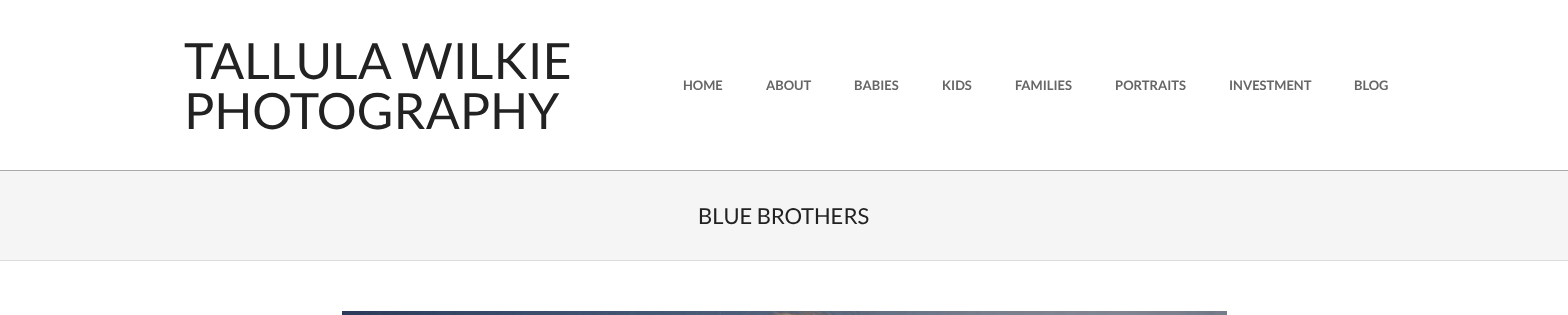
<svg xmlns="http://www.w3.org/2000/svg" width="1568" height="315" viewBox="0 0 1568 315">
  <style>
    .t1 { font: 50px Lato; fill: #222; }
    .t2 { font: bold 13px Lato; fill: #666; }
    .t3 { font: 22px Lato; fill: #222; }
  </style>
  <rect width="100%" height="100%" fill="#fff"/>
  <rect x="0" y="170" width="1568" height="1" fill="#aaa"/>
  <text x="184" y="79" class="t1">TALLULA WILKIE</text>
  <text x="184" y="129" class="t1">PHOTOGRAPHY</text>
  <text x="683" y="90" class="t2">HOME</text>
  <text x="766" y="90" class="t2">ABOUT</text>
  <text x="854" y="90" class="t2">BABIES</text>
  <text x="942" y="90" class="t2">KIDS</text>
  <text x="1015" y="90" class="t2">FAMILIES</text>
  <text x="1115" y="90" class="t2">PORTRAITS</text>
  <text x="1229" y="90" class="t2">INVESTMENT</text>
  <text x="1354" y="90" class="t2">BLOG</text>
  <rect x="0" y="171" width="1568" height="89" fill="#f5f5f5"/>
  <rect x="0" y="260" width="1568" height="1" fill="#ddd"/>
  <text x="698" y="224" class="t3">BLUE BROTHERS</text>
  <image x="342" y="311" width="885" height="4" href="images/1.png"/>
</svg>
